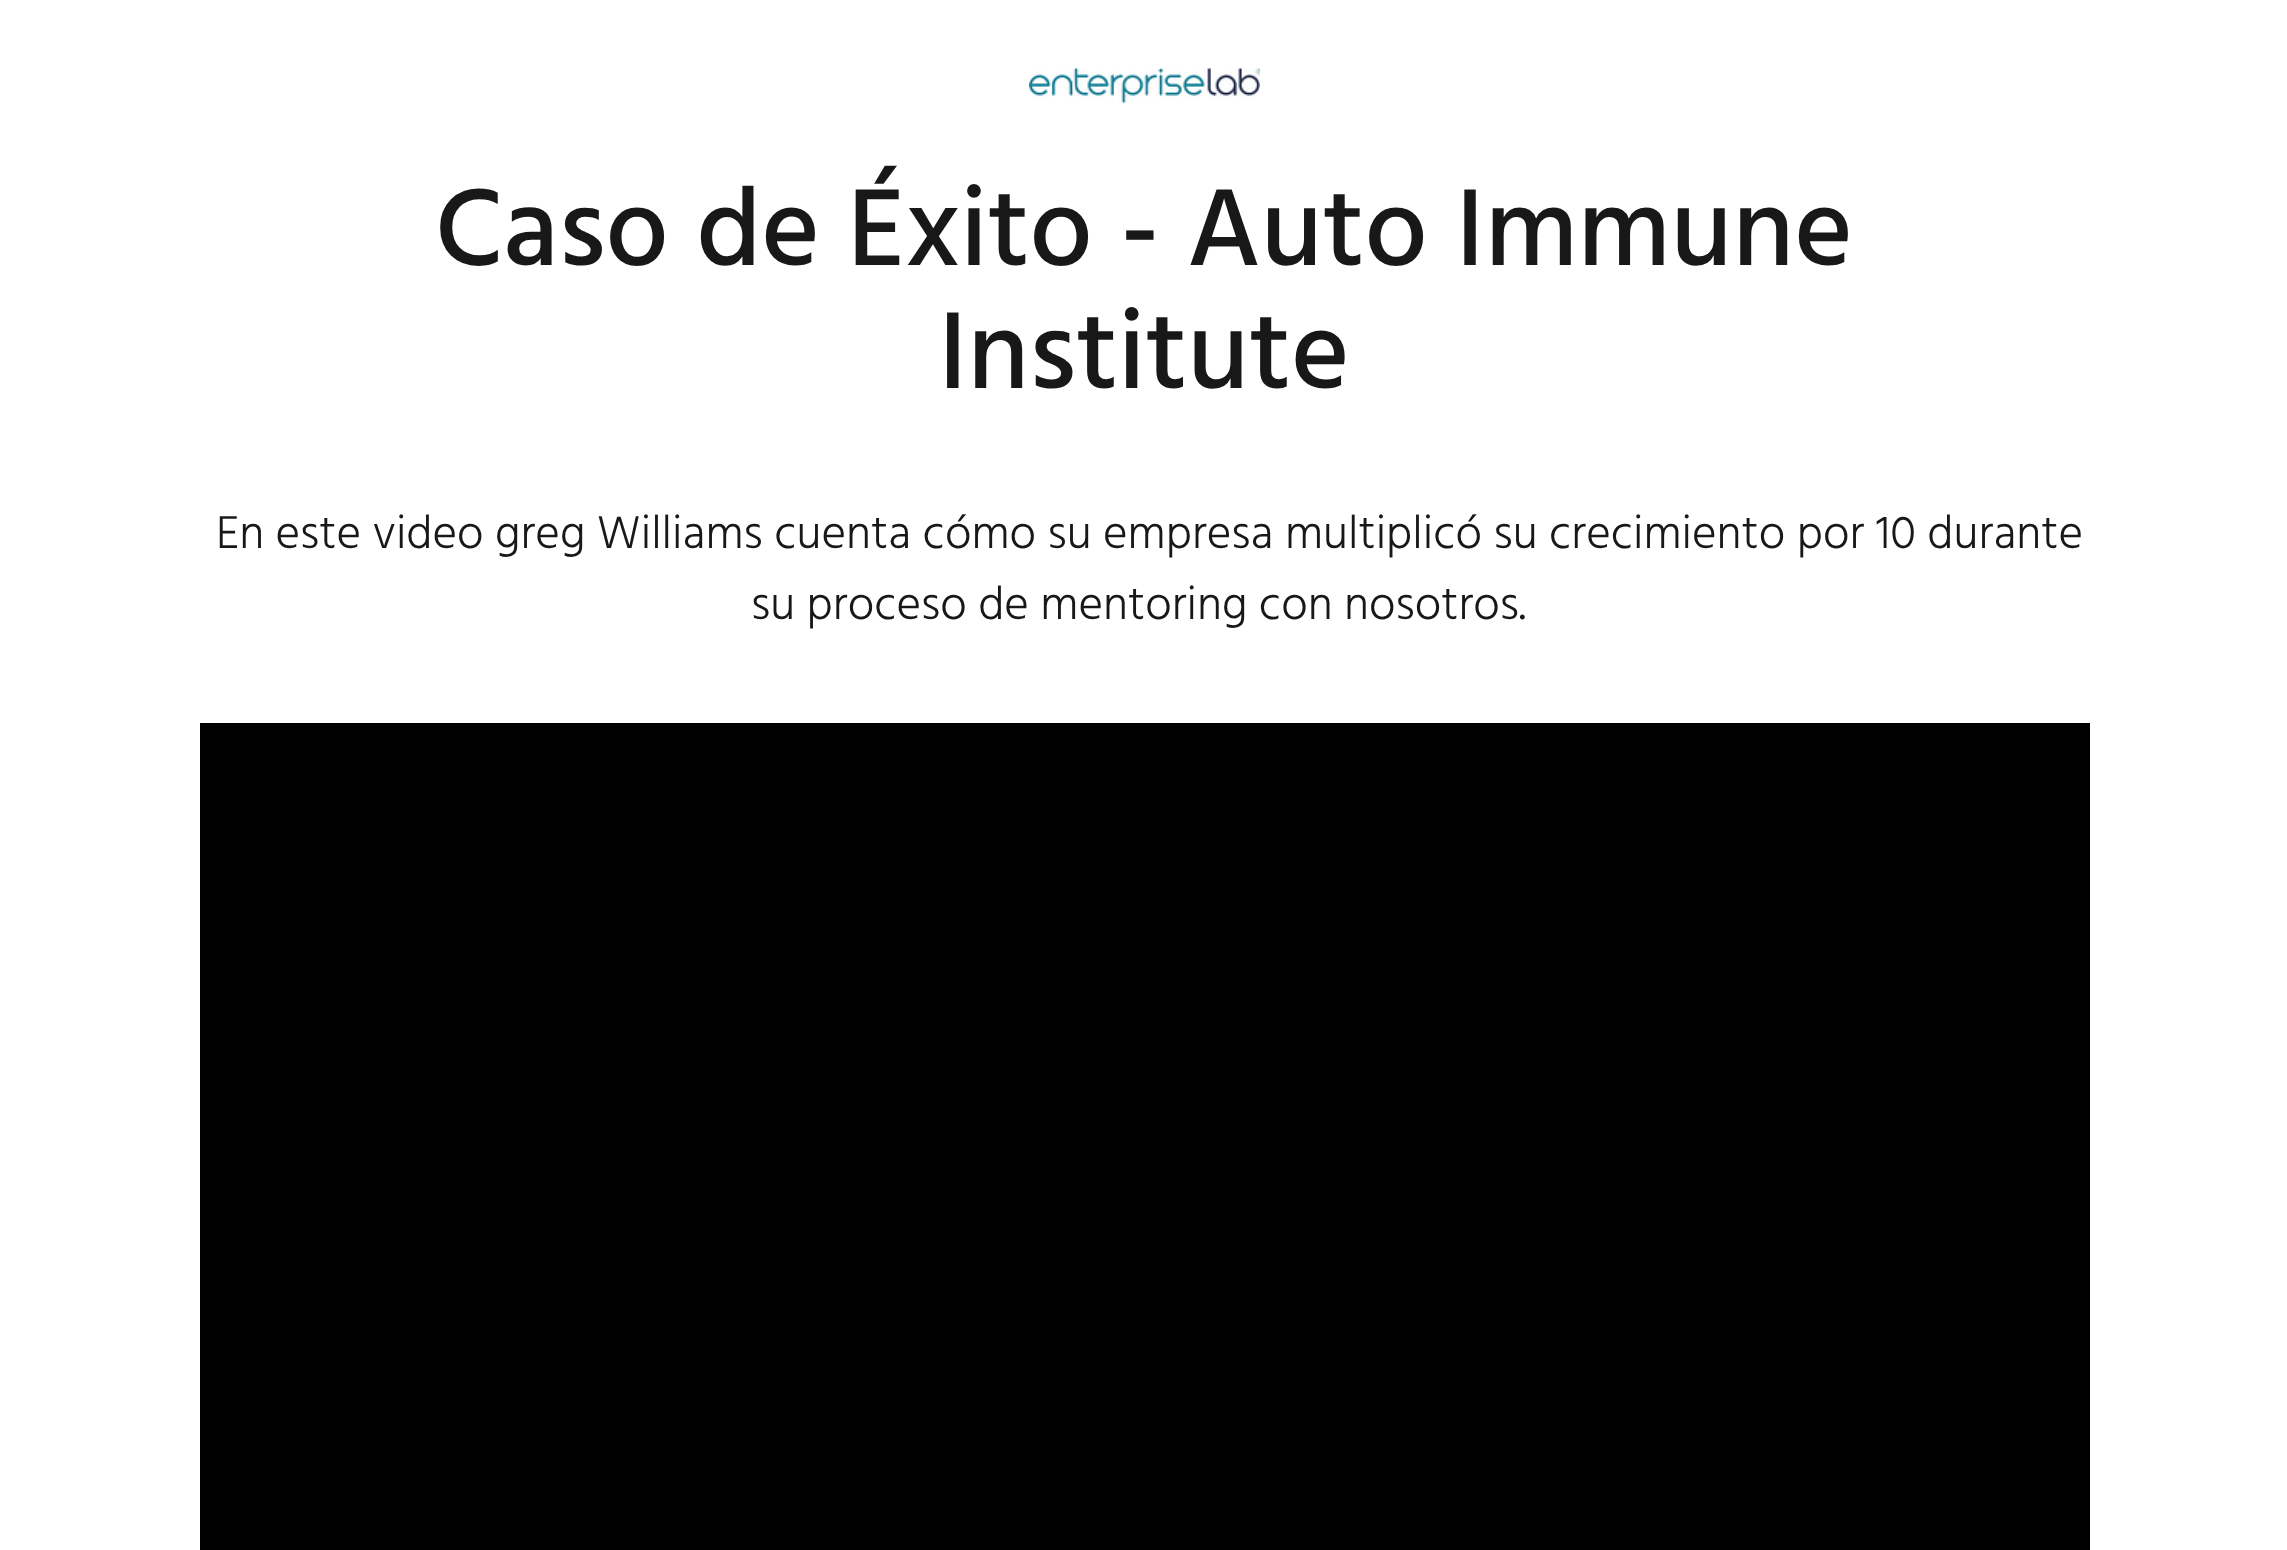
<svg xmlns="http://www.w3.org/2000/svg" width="2287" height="1550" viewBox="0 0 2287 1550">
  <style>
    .t1 { font: 500 112px Hind; fill: #191818; }
    .t2 { font: 300 47.25px Hind; fill: #191818; }
  </style>
  <rect width="100%" height="100%" fill="#fff"/>
  <image x="1029" y="68" width="231" height="36" href="images/1.png"/>
  <text x="435" y="265" class="t1">Caso de Éxito - Auto Immune</text>
  <text x="938" y="388" class="t1">Institute</text>
  <text x="216" y="548" class="t2">En este video greg Williams cuenta cómo su empresa multiplicó su crecimiento por 10 durante</text>
  <text x="751" y="619" class="t2">su proceso de mentoring con nosotros.</text>
  <rect x="200" y="723" width="1890" height="827" fill="#000"/>
</svg>
